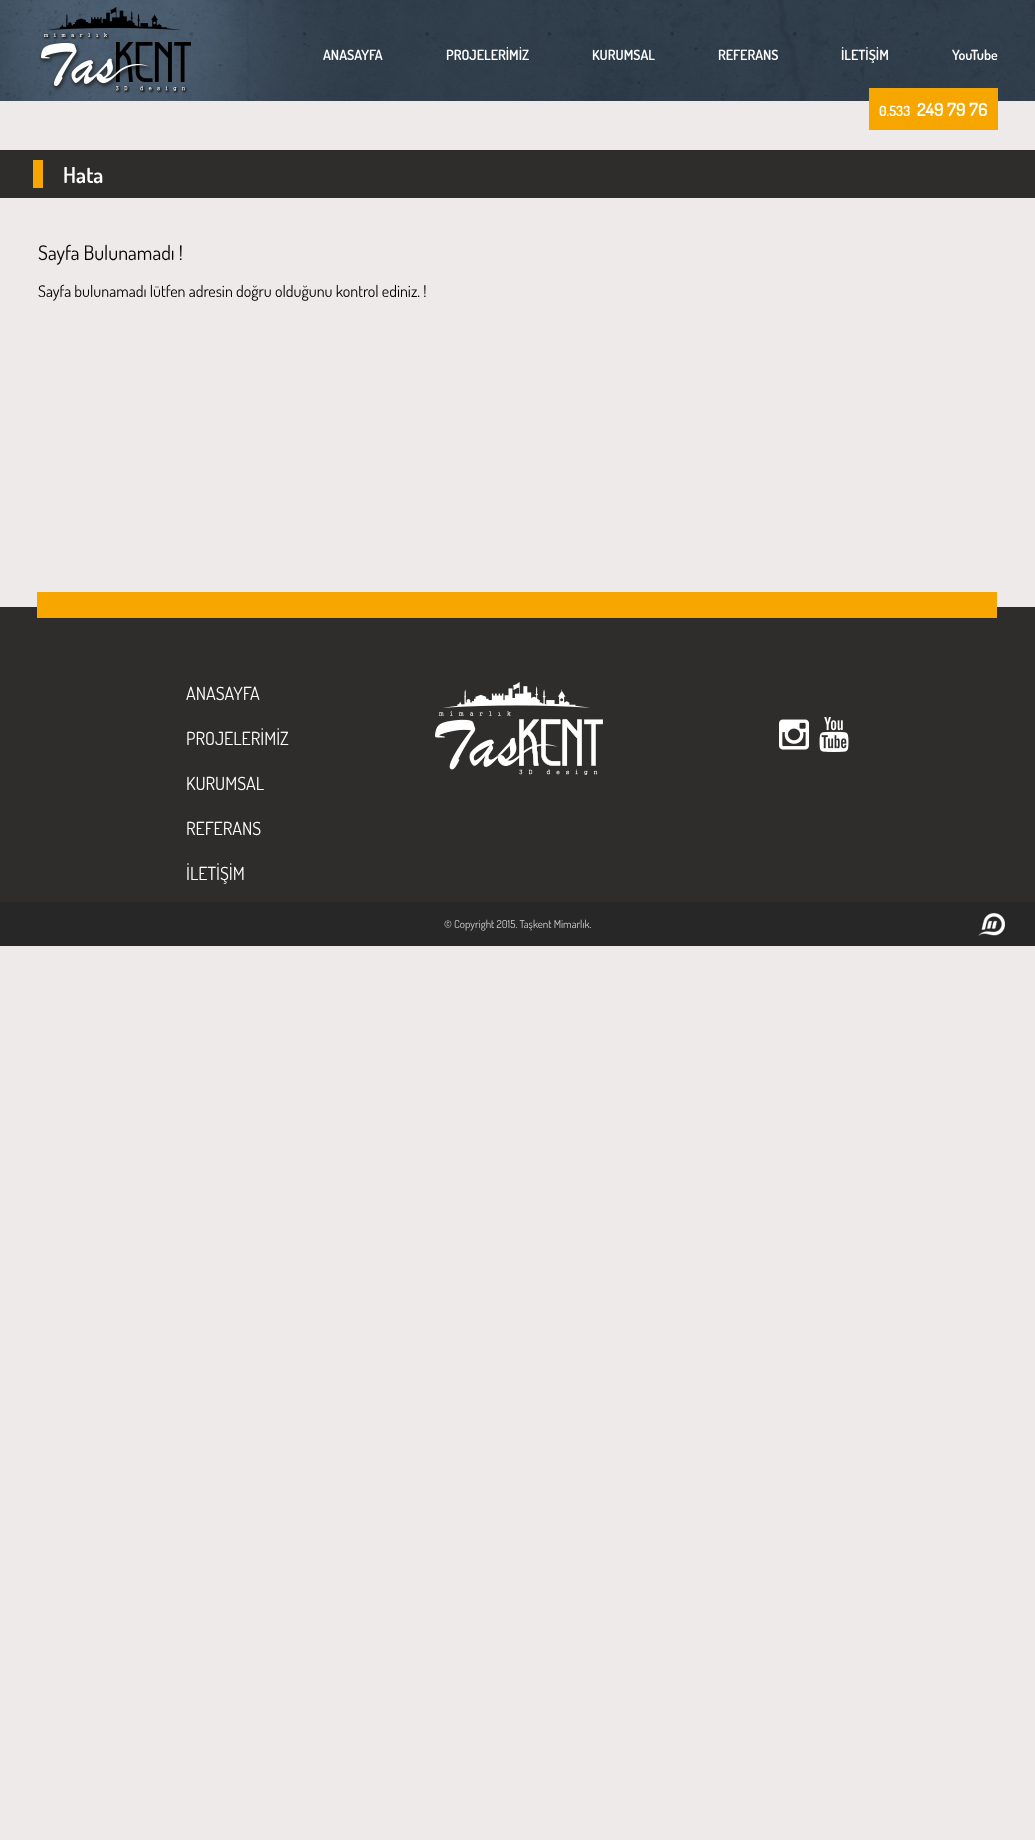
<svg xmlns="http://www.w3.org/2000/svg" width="1035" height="1840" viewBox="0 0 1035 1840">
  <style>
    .t1 { font: 600 14px Dosis; fill: #fff; }
    .t2 { font: 600 18px Dosis; fill: #fff; }
    .t3 { font: 600 22px Dosis; fill: #fff; }
    .t4 { font: 20px Dosis; fill: #000; }
    .t5 { font: 16px Dosis; fill: #000; }
    .t6 { font: 18px Dosis; fill: #fff; }
    .t7 { font: 11px Dosis; fill: #ccc; }
  </style>
  <rect width="100%" height="100%" fill="#eeeae9"/>
  <image x="0" y="0" width="1035" height="101" href="images/1.png"/>
  <image x="39" y="7" width="152" height="87" href="images/2.png"/>
  <text x="323" y="60" class="t1">ANASAYFA</text>
  <text x="446" y="60" class="t1">PROJELERİMİZ</text>
  <text x="592" y="60" class="t1">KURUMSAL</text>
  <text x="718" y="60" class="t1">REFERANS</text>
  <text x="841" y="60" class="t1">İLETİŞİM</text>
  <text x="952" y="60" class="t1">YouTube</text>
  <rect x="869" y="88" width="129" height="42" fill="#f7a600"/>
  <text x="879" y="116" class="t1">0.533</text>
  <text x="917" y="116" class="t2">249 79 76</text>
  <rect x="0" y="150" width="1035" height="48" fill="#2e2d2c"/>
  <rect x="33" y="160" width="10" height="28" fill="#f7a600"/>
  <text x="63" y="183" class="t3">Hata</text>
  <text x="38" y="260" class="t4">Sayfa Bulunamadı !</text>
  <text x="38" y="297" class="t5">Sayfa bulunamadı lütfen adresin doğru olduğunu kontrol ediniz. !</text>
  <rect x="0" y="607" width="1035" height="295" fill="#2e2d2c"/>
  <rect x="37" y="592" width="960" height="26" fill="#f7a600"/>
  <text x="186" y="700" class="t6">ANASAYFA</text>
  <text x="186" y="745" class="t6">PROJELERİMİZ</text>
  <text x="186" y="790" class="t6">KURUMSAL</text>
  <text x="186" y="835" class="t6">REFERANS</text>
  <text x="186" y="880" class="t6">İLETİŞİM</text>
  <image x="435" y="682" width="168" height="93" href="images/3.png"/>
  <image x="779" y="719" width="30" height="31" href="images/4.png"/>
  <image x="819" y="717" width="30" height="35" href="images/5.png"/>
  <rect x="0" y="902" width="1035" height="44" fill="#282727"/>
  <text x="444" y="928" class="t7">© Copyright 2015. Taşkent Mimarlık.</text>
  <image x="978" y="913" width="27" height="23" href="images/6.png"/>
</svg>
